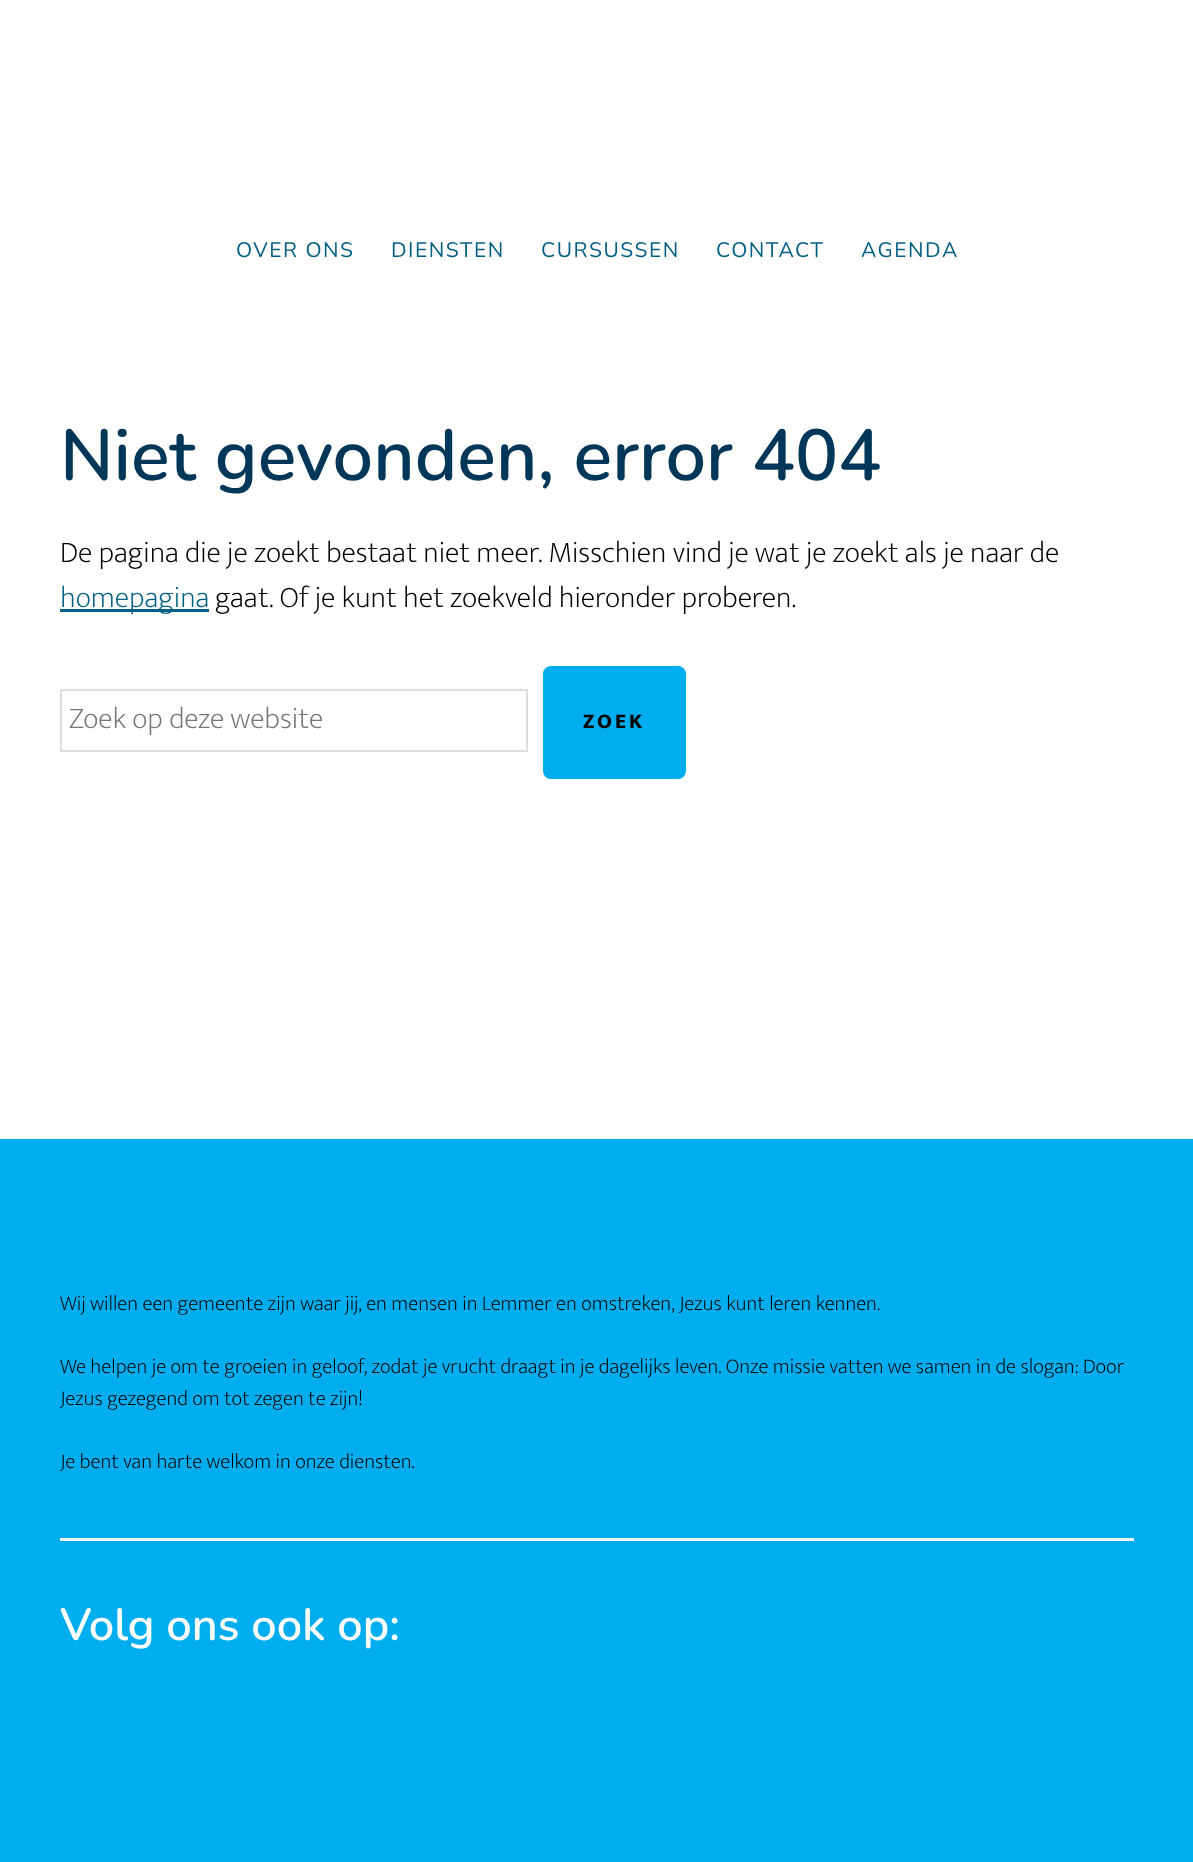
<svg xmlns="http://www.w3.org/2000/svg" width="1193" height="1862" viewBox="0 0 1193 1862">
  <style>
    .t1 { font: 21px Nunito; letter-spacing: 1.5px; fill: #025f82; }
    .t2 { font: 600 72px Nunito; fill: #003657; }
    .t3 { font: 200 30px Ek Mukta; fill: #000; }
    .t4 { font: 200 30px Ek Mukta; fill: #025f82; }
    .t5 { font: 200 30px Ek Mukta; fill: #757575; }
    .t6 { font: 800 21px Ek Mukta; letter-spacing: 3px; fill: #000; }
    .t7 { font: 200 21px Ek Mukta; fill: #000; }
    .t8 { font: 600 45px Nunito; fill: #fff; }
  </style>
  <rect width="100%" height="100%" fill="#fff"/>
  <text x="236" y="257" class="t1">OVER ONS</text>
  <text x="391" y="257" class="t1">DIENSTEN</text>
  <text x="541" y="257" class="t1">CURSUSSEN</text>
  <text x="716" y="257" class="t1">CONTACT</text>
  <text x="861" y="257" class="t1">AGENDA</text>
  <text x="60" y="480" class="t2">Niet gevonden, error 404</text>
  <text x="60" y="562" class="t3">De pagina die je zoekt bestaat niet meer. Misschien vind je wat je zoekt als je naar de</text>
  <rect x="60" y="609" width="149" height="3" fill="#025f82"/>
  <text x="60" y="607" class="t4">homepagina</text>
  <text x="215" y="607" class="t3">gaat. Of je kunt het zoekveld hieronder proberen.</text>
  <rect x="61" y="690" width="466" height="61" fill="none" stroke="#ddd" stroke-width="2"/>
  <text x="69" y="728" class="t5">Zoek op deze website</text>
  <rect x="544.5" y="667.5" width="140" height="110" rx="6.5" fill="#00aeef" stroke="#00aeef" stroke-width="3"/>
  <text x="583" y="728" class="t6">ZOEK</text>
  <rect x="0" y="1139" width="1193" height="723" fill="#00aeef"/>
  <text x="60" y="1310" class="t7">Wij willen een gemeente zijn waar jij, en mensen in Lemmer en omstreken, Jezus kunt leren kennen.</text>
  <text x="60" y="1373" class="t7">We helpen je om te groeien in geloof, zodat je vrucht draagt in je dagelijks leven. Onze missie vatten we samen in de slogan: Door</text>
  <text x="60" y="1405" class="t7">Jezus gezegend om tot zegen te zijn!</text>
  <text x="60" y="1468" class="t7">Je bent van harte welkom in onze diensten.</text>
  <rect x="60" y="1538" width="1074" height="3" fill="#f5f5f5"/>
  <text x="60" y="1640" class="t8">Volg ons ook op:</text>
</svg>
